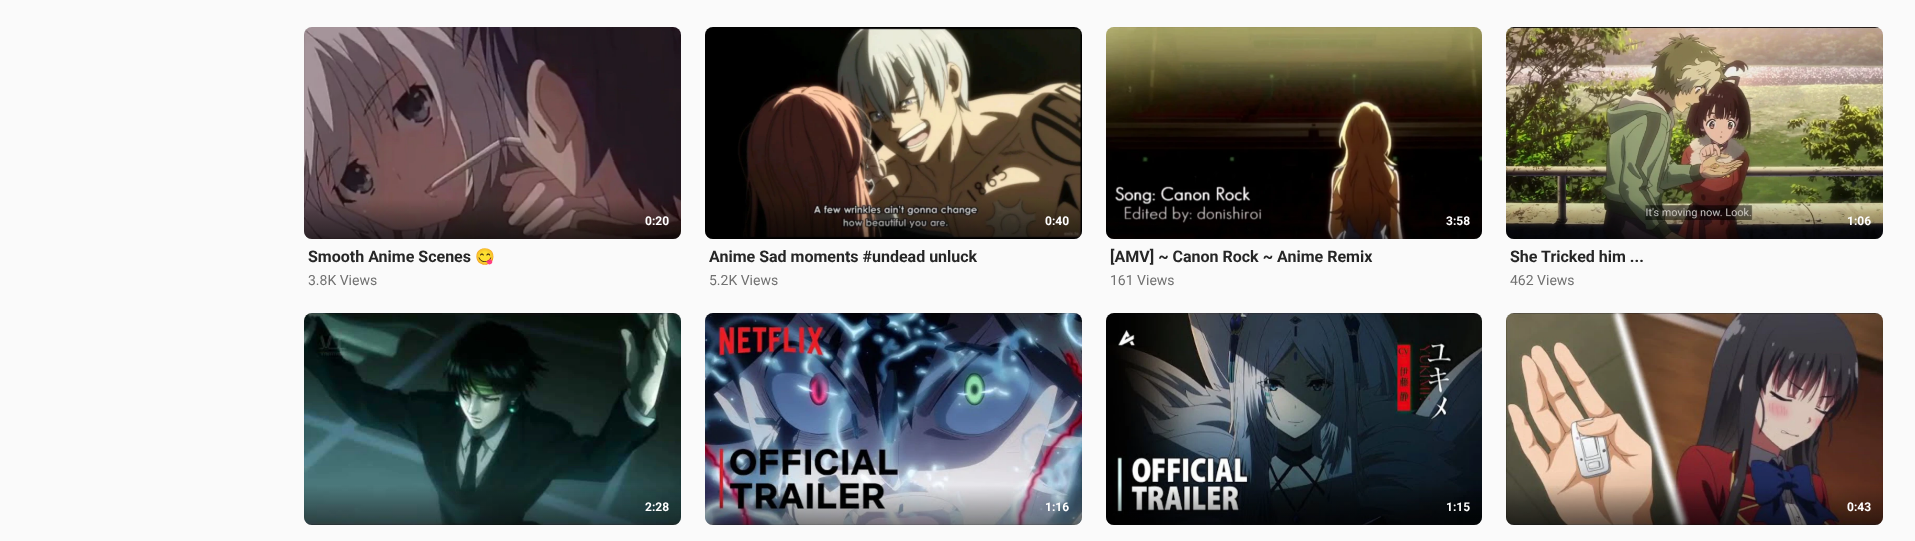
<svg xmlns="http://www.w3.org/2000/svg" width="1915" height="541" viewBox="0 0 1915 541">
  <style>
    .t1 { font: bold 12px Roboto; fill: #fff; }
    .t2 { font: bold 16px Roboto; fill: #262626; }
    .t3 { font: bold 16px Noto Color Emoji; fill: #262626; }
    .t4 { font: 14px Roboto; fill: #717171; }
  </style>
  <defs>
    <linearGradient id="g1" gradientUnits="userSpaceOnUse" x1="492" y1="199" x2="492" y2="239"><stop offset="0" stop-color="#000" stop-opacity="0"/><stop offset="0.57" stop-color="#000" stop-opacity="0.3"/><stop offset="0.99" stop-color="#000" stop-opacity="0.5"/></linearGradient>
    <linearGradient id="g2" gradientUnits="userSpaceOnUse" x1="893" y1="199" x2="893" y2="239"><stop offset="0" stop-color="#000" stop-opacity="0"/><stop offset="0.57" stop-color="#000" stop-opacity="0.3"/><stop offset="0.99" stop-color="#000" stop-opacity="0.5"/></linearGradient>
    <linearGradient id="g3" gradientUnits="userSpaceOnUse" x1="1294" y1="199" x2="1294" y2="239"><stop offset="0" stop-color="#000" stop-opacity="0"/><stop offset="0.57" stop-color="#000" stop-opacity="0.3"/><stop offset="0.99" stop-color="#000" stop-opacity="0.5"/></linearGradient>
    <linearGradient id="g4" gradientUnits="userSpaceOnUse" x1="1695" y1="199" x2="1695" y2="239"><stop offset="0" stop-color="#000" stop-opacity="0"/><stop offset="0.57" stop-color="#000" stop-opacity="0.3"/><stop offset="0.99" stop-color="#000" stop-opacity="0.5"/></linearGradient>
    <linearGradient id="g5" gradientUnits="userSpaceOnUse" x1="492" y1="485" x2="492" y2="525"><stop offset="0" stop-color="#000" stop-opacity="0"/><stop offset="0.57" stop-color="#000" stop-opacity="0.3"/><stop offset="0.99" stop-color="#000" stop-opacity="0.5"/></linearGradient>
    <linearGradient id="g6" gradientUnits="userSpaceOnUse" x1="893" y1="485" x2="893" y2="525"><stop offset="0" stop-color="#000" stop-opacity="0"/><stop offset="0.57" stop-color="#000" stop-opacity="0.3"/><stop offset="0.99" stop-color="#000" stop-opacity="0.5"/></linearGradient>
    <linearGradient id="g7" gradientUnits="userSpaceOnUse" x1="1294" y1="485" x2="1294" y2="525"><stop offset="0" stop-color="#000" stop-opacity="0"/><stop offset="0.57" stop-color="#000" stop-opacity="0.3"/><stop offset="0.99" stop-color="#000" stop-opacity="0.5"/></linearGradient>
    <linearGradient id="g8" gradientUnits="userSpaceOnUse" x1="1695" y1="485" x2="1695" y2="525"><stop offset="0" stop-color="#000" stop-opacity="0"/><stop offset="0.57" stop-color="#000" stop-opacity="0.3"/><stop offset="0.99" stop-color="#000" stop-opacity="0.5"/></linearGradient>
  </defs>
  <rect width="100%" height="100%" fill="#fafafa"/>
  <rect x="304" y="27" width="377" height="212" rx="8" fill="#f2f2f2"/>
  <image x="304" y="27" width="377" height="212" href="images/1.png"/>
  <path d="M304 199H681V231C681 235.5 677.5 239 673 239H312C307.5 239 304 235.5 304 231Z" fill="url(#g1)"/>
  <text x="645" y="225" class="t1">0:20</text>
  <text x="308" y="262" class="t2">Smooth Anime Scenes</text>
  <text x="475" y="262" class="t3">😋</text>
  <text x="308" y="285" class="t4">3.8K Views</text>
  <rect x="705" y="27" width="377" height="212" rx="8" fill="#f2f2f2"/>
  <image x="705" y="27" width="377" height="212" href="images/2.png"/>
  <path d="M705 199H1082V231C1082 235.5 1078.5 239 1074 239H713C708.5 239 705 235.5 705 231Z" fill="url(#g2)"/>
  <text x="1045" y="225" class="t1">0:40</text>
  <text x="709" y="262" class="t2">Anime Sad moments #undead unluck</text>
  <text x="709" y="285" class="t4">5.2K Views</text>
  <rect x="1106" y="27" width="376" height="212" rx="8" fill="#f2f2f2"/>
  <image x="1106" y="27" width="376" height="212" href="images/3.png"/>
  <path d="M1106 199H1482V231C1482 235.5 1478.5 239 1474 239H1114C1109.5 239 1106 235.5 1106 231Z" fill="url(#g3)"/>
  <text x="1446" y="225" class="t1">3:58</text>
  <text x="1110" y="262" class="t2">[AMV] ~ Canon Rock ~ Anime Remix</text>
  <text x="1110" y="285" class="t4">161 Views</text>
  <rect x="1506" y="27" width="377" height="212" rx="8" fill="#f2f2f2"/>
  <image x="1506" y="27" width="377" height="212" href="images/4.png"/>
  <path d="M1506 199H1883V231C1883 235.5 1879.5 239 1875 239H1514C1509.5 239 1506 235.5 1506 231Z" fill="url(#g4)"/>
  <text x="1847" y="225" class="t1">1:06</text>
  <text x="1510" y="262" class="t2">She Tricked him ...</text>
  <text x="1510" y="285" class="t4">462 Views</text>
  <rect x="304" y="313" width="377" height="212" rx="8" fill="#f2f2f2"/>
  <image x="304" y="313" width="377" height="212" href="images/5.png"/>
  <path d="M304 485H681V517C681 521.5 677.5 525 673 525H312C307.5 525 304 521.5 304 517Z" fill="url(#g5)"/>
  <text x="645" y="511" class="t1">2:28</text>
  <rect x="705" y="313" width="377" height="212" rx="8" fill="#f2f2f2"/>
  <image x="705" y="313" width="377" height="212" href="images/6.png"/>
  <path d="M705 485H1082V517C1082 521.5 1078.5 525 1074 525H713C708.5 525 705 521.5 705 517Z" fill="url(#g6)"/>
  <text x="1045" y="511" class="t1">1:16</text>
  <rect x="1106" y="313" width="376" height="212" rx="8" fill="#f2f2f2"/>
  <image x="1106" y="313" width="376" height="212" href="images/7.png"/>
  <path d="M1106 485H1482V517C1482 521.5 1478.5 525 1474 525H1114C1109.5 525 1106 521.5 1106 517Z" fill="url(#g7)"/>
  <text x="1446" y="511" class="t1">1:15</text>
  <rect x="1506" y="313" width="377" height="212" rx="8" fill="#f2f2f2"/>
  <image x="1506" y="313" width="377" height="212" href="images/8.png"/>
  <path d="M1506 485H1883V517C1883 521.5 1879.5 525 1875 525H1514C1509.5 525 1506 521.5 1506 517Z" fill="url(#g8)"/>
  <text x="1847" y="511" class="t1">0:43</text>
</svg>
